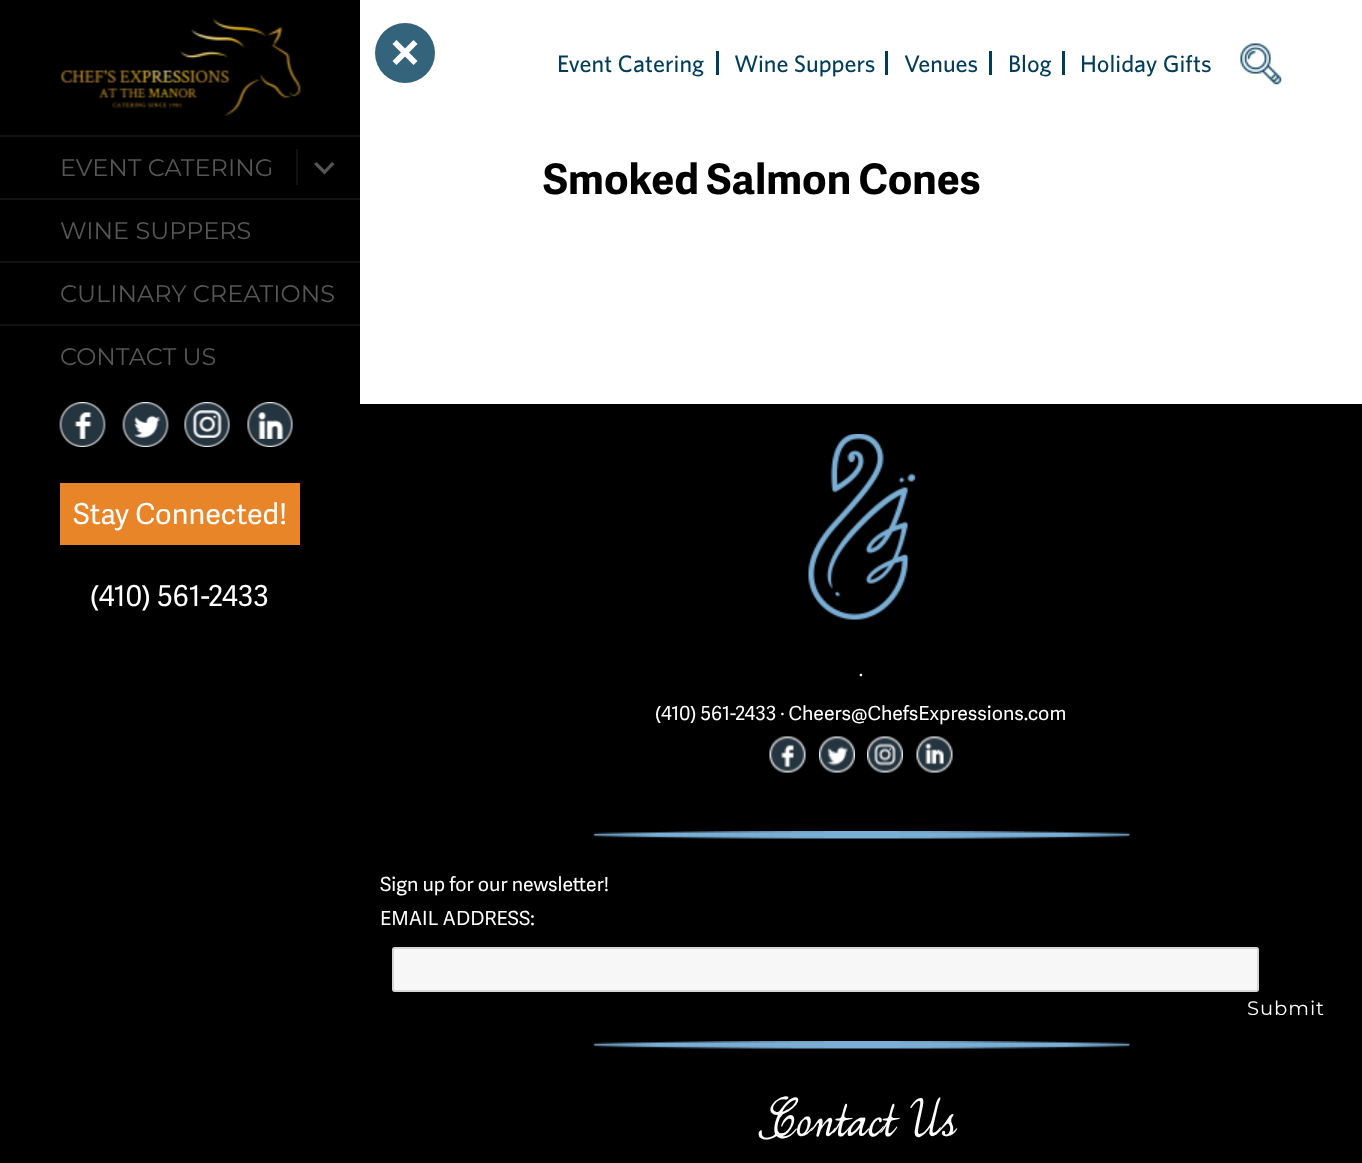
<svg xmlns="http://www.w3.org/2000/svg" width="1362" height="1163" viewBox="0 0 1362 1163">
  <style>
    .t1 { font: 24px Montserrat; fill: #565656; }
    .t2 { font: 28.75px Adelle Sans; fill: #fff; }
    .t3 { font: 500 24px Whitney; fill: #013d5a; }
    .t4 { font: bold 42px Adelle Sans; fill: #000; }
    .t5 { font: 19.5px Adelle Sans; fill: #fff; }
    .t6 { font: 19.5px Montserrat; letter-spacing: 1px; fill: #fff; }
    .t7 { font: 54.5px 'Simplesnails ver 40'; letter-spacing: 1.5px; fill: #fff; }
  </style>
  <rect width="100%" height="100%" fill="#fff"/>
  <circle cx="405" cy="53" r="30" fill="#34647b"/>
  <path d="M392.5 61L413.5 40L417.5 44L396.5 65Z" fill="#fff"/>
  <path d="M396.5 40L417.5 61L413.5 65L392.5 44Z" fill="#fff"/>
  <rect x="0" y="0" width="360" height="1163" fill="#000"/>
  <image x="60" y="18" width="241" height="98" href="images/1.png"/>
  <rect x="0" y="135" width="360" height="2" fill="#111"/>
  <text x="60" y="176" class="t1">EVENT CATERING</text>
  <rect x="296" y="149" width="2" height="36" fill="#111"/>
  <path d="M332 162L334.5 164L324.5 174.5L314 164L316.5 162L324.5 170Z" fill="#565656"/>
  <rect x="0" y="198" width="360" height="2" fill="#111"/>
  <text x="60" y="239" class="t1">WINE SUPPERS</text>
  <rect x="0" y="261" width="360" height="2" fill="#111"/>
  <text x="60" y="302" class="t1">CULINARY CREATIONS</text>
  <rect x="0" y="324" width="360" height="2" fill="#111"/>
  <text x="60" y="365" class="t1">CONTACT US</text>
  <image x="59" y="402" width="47" height="45" href="images/2.png"/>
  <image x="122" y="402" width="47" height="45" href="images/3.png"/>
  <image x="184" y="402" width="46" height="45" href="images/4.png"/>
  <image x="247" y="402" width="46" height="45" href="images/5.png"/>
  <rect x="60" y="483" width="240" height="62" fill="#e98529"/>
  <text x="73" y="524" class="t2">Stay Connected!</text>
  <text x="90" y="606" class="t2">(410) 561-2433</text>
  <rect x="716" y="51" width="3" height="24" fill="#013d5a"/>
  <text x="557" y="72" class="t3">Event Catering</text>
  <rect x="885" y="51" width="3" height="24" fill="#013d5a"/>
  <text x="734" y="72" class="t3">Wine Suppers</text>
  <rect x="989" y="51" width="3" height="24" fill="#013d5a"/>
  <text x="904" y="72" class="t3">Venues</text>
  <rect x="1062" y="51" width="3" height="24" fill="#013d5a"/>
  <text x="1008" y="72" class="t3">Blog</text>
  <text x="1080" y="72" class="t3">Holiday Gifts</text>
  <image x="1240" y="43" width="42" height="42" href="images/6.png"/>
  <text x="543" y="194" class="t4">Smoked Salmon Cones</text>
  <rect x="360" y="404" width="1002" height="759" fill="#000"/>
  <image x="808" y="434" width="108" height="186" href="images/7.png"/>
  <text x="859" y="681" class="t5">·</text>
  <text x="655" y="720" class="t5">(410) 561-2433 · Cheers@ChefsExpressions.com</text>
  <image x="769" y="736" width="37" height="37" href="images/8.png"/>
  <image x="819" y="736" width="36" height="37" href="images/9.png"/>
  <image x="867" y="736" width="36" height="37" href="images/10.png"/>
  <image x="916" y="736" width="37" height="37" href="images/11.png"/>
  <image x="593" y="831" width="537" height="8" href="images/12.png"/>
  <text x="380" y="891" class="t5">Sign up for our newsletter!</text>
  <text x="380" y="925" class="t5">EMAIL ADDRESS:</text>
  <rect x="392" y="947" width="867" height="45" rx="3" fill="#f7f7f7"/>
  <rect x="393" y="948" width="865" height="43" rx="2" fill="none" stroke="#56565633" stroke-width="2"/>
  <text x="1247" y="1015" class="t6">Submit</text>
  <image x="593" y="1041" width="537" height="8" href="images/12.png"/>
  <text x="763" y="1136" class="t7">Contact Us</text>
</svg>
